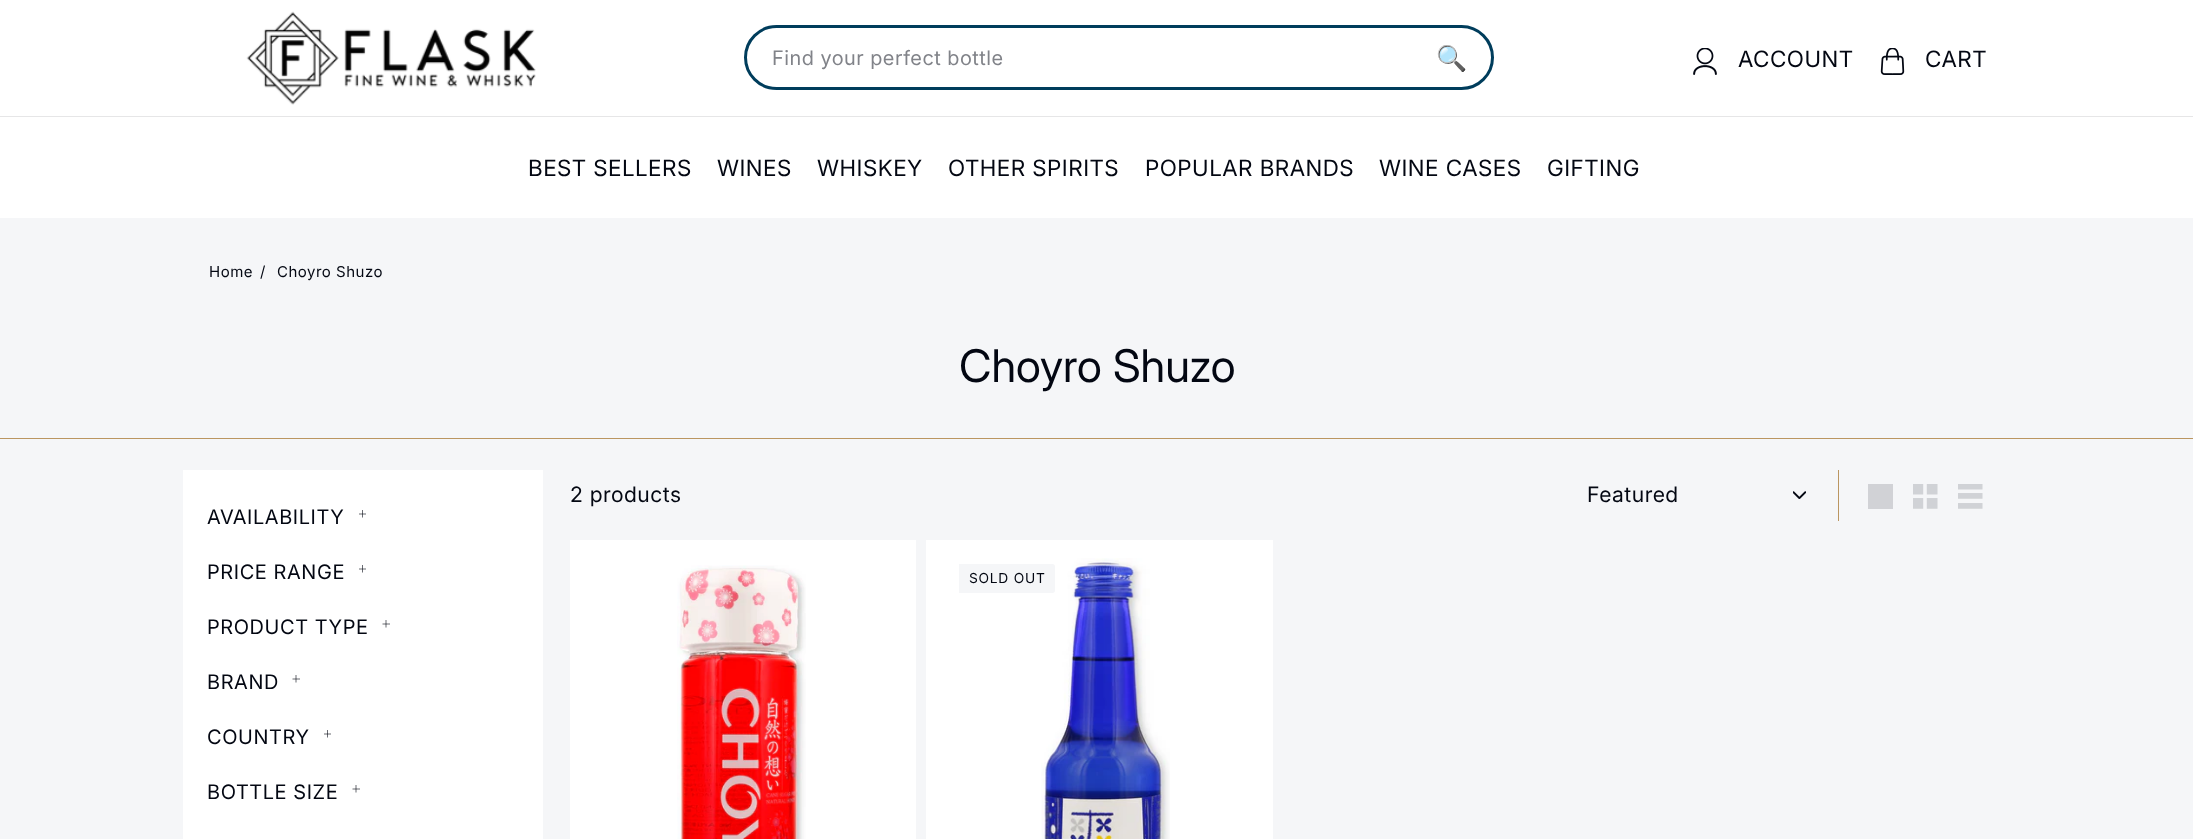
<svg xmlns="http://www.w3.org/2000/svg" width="2193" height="839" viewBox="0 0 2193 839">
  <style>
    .t1 { font: 20px 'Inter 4'; letter-spacing: 0.5px; fill: #818389; }
    .t2 { font: 25px Noto Color Emoji; letter-spacing: 0.6px; fill: #030712; }
    .t3 { font: 22.5px 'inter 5'; letter-spacing: 0.5px; fill: #030712; }
    .t4 { font: 15px 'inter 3'; letter-spacing: 0.5px; fill: #030712; }
    .t5 { font: 45px 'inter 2'; fill: #030712; }
    .t6 { font: 20px 'Inter 4'; letter-spacing: 0.6px; fill: #030712; }
    .t7 { font: 21.25px inter; letter-spacing: 0.5px; fill: #030712; }
    .t8 { font: 13.75px 'inter 3'; letter-spacing: 0.75px; fill: #030712; }
  </style>
  <rect width="100%" height="100%" fill="#f5f6f8"/>
  <rect x="0" y="0" width="2193" height="116" fill="#fff"/>
  <image x="246" y="11" width="290" height="94" href="images/1.png"/>
  <rect x="745.5" y="26.5" width="747" height="62" rx="31" fill="none" stroke="#003d5c" stroke-width="3"/>
  <text x="772" y="65" class="t1">Find your perfect bottle</text>
  <text x="1436" y="67" class="t2">🔍</text>
  <image x="1693" y="48" width="24" height="27" href="images/2.png"/>
  <text x="1738" y="67" class="t3">ACCOUNT</text>
  <image x="1880" y="48" width="25" height="27" href="images/3.png"/>
  <text x="1925" y="67" class="t3">CART</text>
  <rect x="0" y="117" width="2193" height="101" fill="#fff"/>
  <rect x="0" y="116" width="2193" height="1" fill="#e6e6e7"/>
  <text x="528" y="176" class="t3">BEST SELLERS</text>
  <text x="717" y="176" class="t3">WINES</text>
  <text x="817" y="176" class="t3">WHISKEY</text>
  <text x="948" y="176" class="t3">OTHER SPIRITS</text>
  <text x="1145" y="176" class="t3">POPULAR BRANDS</text>
  <text x="1379" y="176" class="t3">WINE CASES</text>
  <text x="1547" y="176" class="t3">GIFTING</text>
  <text x="209" y="277" class="t4">Home</text>
  <text x="260" y="277" class="t4">/</text>
  <text x="277" y="277" class="t4">Choyro Shuzo</text>
  <text x="959" y="382" class="t5">Choyro Shuzo</text>
  <rect x="0" y="438" width="2193" height="1" fill="#bb9661"/>
  <rect x="183" y="470" width="360" height="369" fill="#fff"/>
  <text x="207" y="524" class="t6">AVAILABILITY</text>
  <path d="M362.5 510V517.5M366 514H359" fill="none" stroke="#030712" stroke-width="0.6"/>
  <text x="207" y="579" class="t6">PRICE RANGE</text>
  <path d="M362.5 565V572.5M366 569H359" fill="none" stroke="#030712" stroke-width="0.6"/>
  <text x="207" y="634" class="t6">PRODUCT TYPE</text>
  <path d="M386 620V627.5M390 624H382.5" fill="none" stroke="#030712" stroke-width="0.6"/>
  <text x="207" y="689" class="t6">BRAND</text>
  <path d="M296 675V682.5M300 679H292.5" fill="none" stroke="#030712" stroke-width="0.6"/>
  <text x="207" y="744" class="t6">COUNTRY</text>
  <path d="M327.5 730V737.5M331 734H324" fill="none" stroke="#030712" stroke-width="0.6"/>
  <text x="207" y="799" class="t6">BOTTLE SIZE</text>
  <path d="M356 785V792.5M360 789H352.5" fill="none" stroke="#030712" stroke-width="0.6"/>
  <text x="570" y="502" class="t7">2 products</text>
  <rect x="1838" y="470" width="1" height="51" fill="#bb9661"/>
  <image x="1793" y="491" width="13" height="8" href="images/4.png"/>
  <text x="1587" y="502" class="t7">Featured</text>
  <rect x="1868" y="484" width="25" height="25" fill="#d1d2d6"/>
  <image x="1913" y="484" width="25" height="25" href="images/5.png"/>
  <image x="1958" y="484" width="25" height="25" href="images/6.png"/>
  <rect x="570" y="540" width="346" height="299" fill="#fff"/>
  <image x="677" y="565" width="129" height="274" href="images/7.png"/>
  <rect x="926" y="540" width="347" height="299" fill="#fff"/>
  <image x="1041" y="558" width="129" height="281" href="images/8.png"/>
  <path d="M959 564H1052.5C1054 564 1055 565 1055 566.5V590.5C1055 592 1054 593 1052.5 593H959Z" fill="#f5f6f8"/>
  <text x="969" y="583" class="t8">SOLD OUT</text>
</svg>
